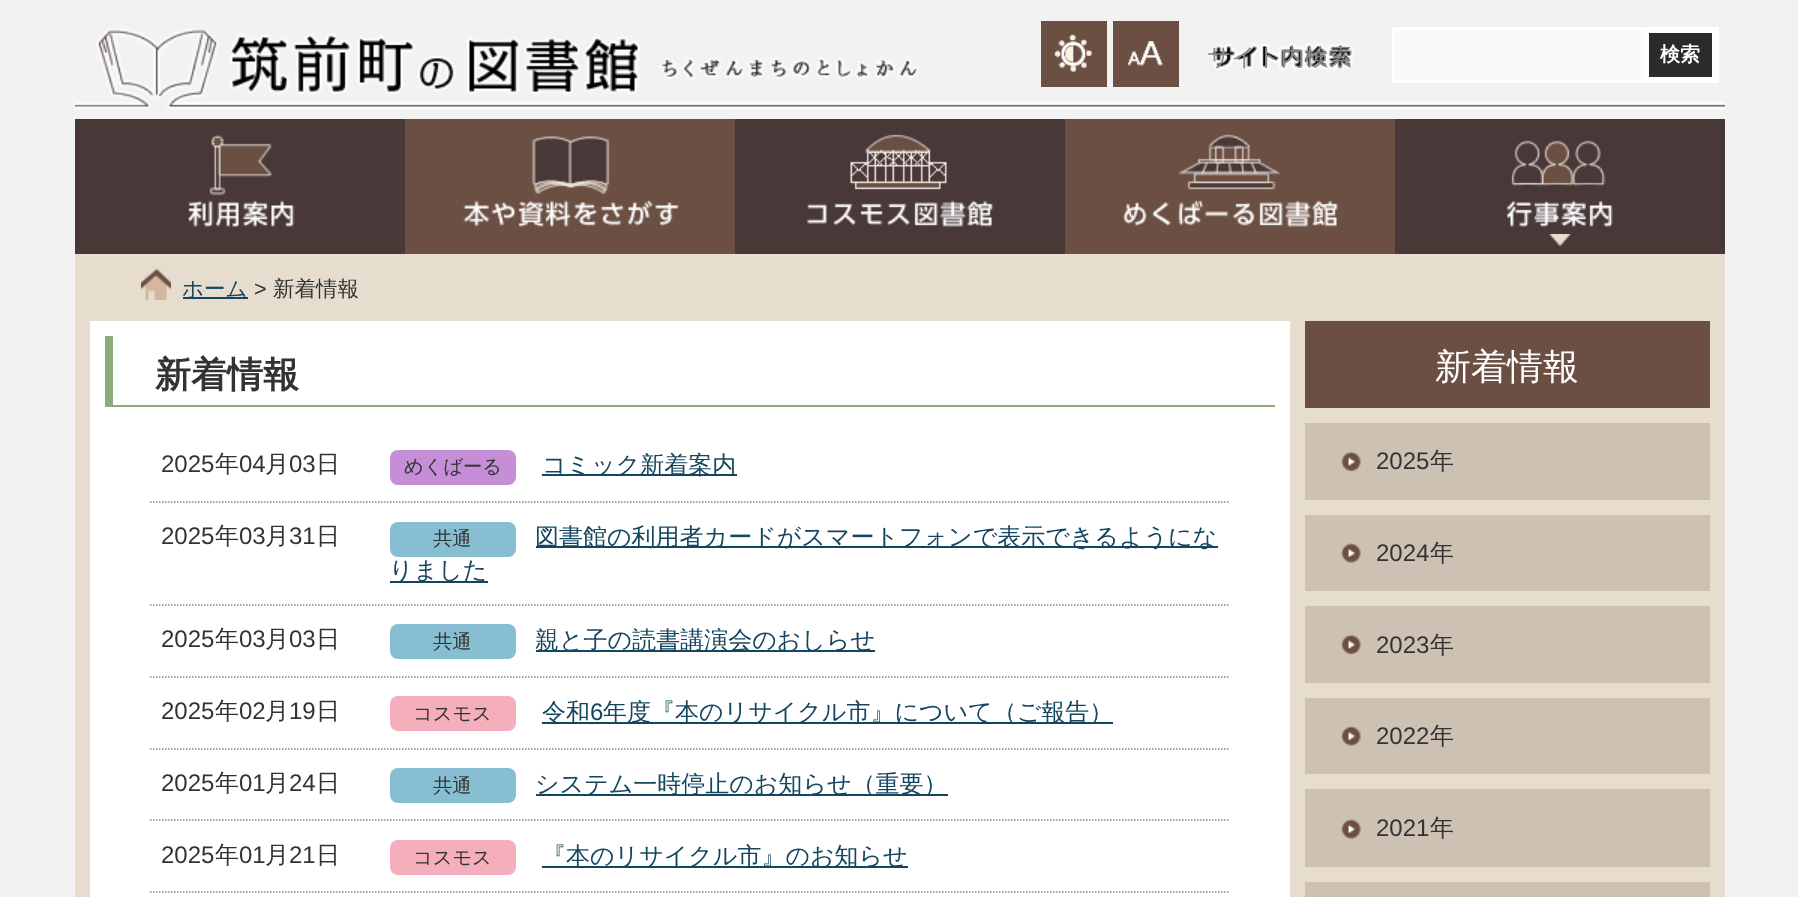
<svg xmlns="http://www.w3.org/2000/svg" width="1798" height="897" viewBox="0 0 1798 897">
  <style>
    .t1 { font: 500 24px WenQuanYi Zen Hei; fill: #888; }
    .t2 { font: bold 20px WenQuanYi Zen Hei; fill: #fff; }
    .t3 { font: 500 21.5px WenQuanYi Zen Hei; fill: #14465f; }
    .t4 { font: 21.5px Liberation Sans; fill: #333; }
    .t5 { font: 500 21.5px WenQuanYi Zen Hei; fill: #333; }
    .t6 { font: bold 36px WenQuanYi Zen Hei; fill: #333; }
    .t7 { font: 24px Liberation Sans; fill: #333; }
    .t8 { font: 500 24px WenQuanYi Zen Hei; fill: #333; }
    .t9 { font: 500 19.25px WenQuanYi Zen Hei; fill: #333; }
    .t10 { font: 500 24px WenQuanYi Zen Hei; fill: #14465f; }
    .t11 { font: 24px Liberation Sans; fill: #14465f; }
    .t12 { font: 500 36px WenQuanYi Zen Hei; fill: #fff; }
  </style>
  <rect width="100%" height="100%" fill="#f2f2f2"/>
  <image x="75" y="28" width="1650" height="82" href="images/1.png"/>
  <image x="229" y="33" width="412" height="62" href="images/2.png"/>
  <image x="660" y="57" width="259" height="23" href="images/3.png"/>
  <rect x="1041" y="21" width="66" height="66" fill="#6b4f43"/>
  <image x="1054" y="34" width="38" height="38" href="images/4.png"/>
  <rect x="1113" y="21" width="66" height="66" fill="#6b4f43"/>
  <image x="1127" y="41" width="36" height="25" href="images/5.png"/>
  <image x="1209" y="43" width="144" height="27" href="images/6.png"/>
  <text x="1207" y="65" class="t1">サイト内検索</text>
  <rect x="1392" y="27" width="327" height="56" fill="#fff"/>
  <rect x="1395" y="30" width="249" height="50" fill="#fafafa"/>
  <rect x="1649" y="33" width="63" height="44" fill="#2b2b2b"/>
  <text x="1660" y="61" class="t2">検索</text>
  <rect x="405" y="119" width="990" height="135" fill="#6b4f43"/>
  <rect x="75" y="119" width="330" height="135" fill="#483838"/>
  <image x="187" y="200" width="108" height="27" href="images/7.png"/>
  <image x="209" y="134" width="63" height="62" href="images/8.png"/>
  <image x="463" y="199" width="216" height="28" href="images/9.png"/>
  <image x="532" y="136" width="78" height="58" href="images/10.png"/>
  <rect x="735" y="119" width="330" height="135" fill="#483838"/>
  <image x="806" y="200" width="188" height="27" href="images/11.png"/>
  <image x="850" y="134" width="97" height="56" href="images/12.png"/>
  <image x="1123" y="200" width="216" height="27" href="images/13.png"/>
  <image x="1178" y="134" width="103" height="56" href="images/14.png"/>
  <rect x="1395" y="119" width="330" height="135" fill="#483838"/>
  <image x="1506" y="200" width="107" height="27" href="images/15.png"/>
  <image x="1511" y="140" width="95" height="47" href="images/16.png"/>
  <image x="1549" y="234" width="22" height="12" href="images/17.png"/>
  <rect x="75" y="254" width="1650" height="643" fill="#e6ddce"/>
  <image x="141" y="268" width="30" height="32" href="images/18.png"/>
  <rect x="183" y="297" width="65" height="2" fill="#14465f"/>
  <text x="182" y="296" class="t3">ホーム</text>
  <text x="254" y="296" class="t4">&gt;</text>
  <text x="273" y="296" class="t5">新着情報</text>
  <rect x="90" y="321" width="1200" height="576" fill="#fff"/>
  <rect x="105" y="405" width="1170" height="2" fill="#8fab7b"/>
  <rect x="105" y="336" width="8" height="71" fill="#8fab7b"/>
  <text x="155" y="387" class="t6">新着情報</text>
  <text x="161" y="472" class="t7">2025</text>
  <text x="215" y="472" class="t8">年</text>
  <text x="239" y="472" class="t7">04</text>
  <text x="265" y="472" class="t8">月</text>
  <text x="289" y="472" class="t7">03</text>
  <text x="316" y="472" class="t8">日</text>
  <path d="M150 502H1230" fill="none" stroke="#888" stroke-width="1.5" stroke-dasharray="1.5 1.5"/>
  <rect x="390" y="450" width="126" height="35" rx="8" fill="#c68ed6"/>
  <text x="404" y="473" class="t9">めくばーる</text>
  <rect x="542" y="474" width="195" height="2" fill="#14465f"/>
  <text x="542" y="473" class="t10">コミック新着案内</text>
  <text x="161" y="544" class="t7">2025</text>
  <text x="215" y="544" class="t8">年</text>
  <text x="239" y="544" class="t7">03</text>
  <text x="265" y="544" class="t8">月</text>
  <text x="289" y="544" class="t7">31</text>
  <text x="316" y="544" class="t8">日</text>
  <path d="M150 605H1230" fill="none" stroke="#888" stroke-width="1.5" stroke-dasharray="1.5 1.5"/>
  <rect x="390" y="522" width="126" height="35" rx="8" fill="#88bed1"/>
  <text x="433" y="545" class="t9">共通</text>
  <rect x="536" y="546" width="682" height="2" fill="#14465f"/>
  <text x="535" y="545" class="t10">図書館の利用者カードがスマートフォンで表示できるようにな</text>
  <rect x="390" y="581" width="98" height="2" fill="#14465f"/>
  <text x="389" y="578" class="t10">りました</text>
  <text x="161" y="647" class="t7">2025</text>
  <text x="215" y="647" class="t8">年</text>
  <text x="239" y="647" class="t7">03</text>
  <text x="265" y="647" class="t8">月</text>
  <text x="289" y="647" class="t7">03</text>
  <text x="316" y="647" class="t8">日</text>
  <path d="M150 677H1230" fill="none" stroke="#888" stroke-width="1.5" stroke-dasharray="1.5 1.5"/>
  <rect x="390" y="624" width="126" height="35" rx="8" fill="#88bed1"/>
  <text x="433" y="648" class="t9">共通</text>
  <rect x="536" y="650" width="339" height="2" fill="#14465f"/>
  <text x="535" y="648" class="t10">親と子の読書講演会のおしらせ</text>
  <text x="161" y="719" class="t7">2025</text>
  <text x="215" y="719" class="t8">年</text>
  <text x="239" y="719" class="t7">02</text>
  <text x="265" y="719" class="t8">月</text>
  <text x="289" y="719" class="t7">19</text>
  <text x="316" y="719" class="t8">日</text>
  <path d="M150 749H1230" fill="none" stroke="#888" stroke-width="1.5" stroke-dasharray="1.5 1.5"/>
  <rect x="390" y="696" width="126" height="35" rx="8" fill="#f5afbc"/>
  <text x="413" y="720" class="t9">コスモス</text>
  <rect x="542" y="722" width="571" height="2" fill="#14465f"/>
  <text x="542" y="720" class="t10">令和</text>
  <text x="590" y="720" class="t11">6</text>
  <text x="603" y="720" class="t10">年度『本のリサイクル市』について（ご報告）</text>
  <text x="161" y="791" class="t7">2025</text>
  <text x="215" y="791" class="t8">年</text>
  <text x="239" y="791" class="t7">01</text>
  <text x="265" y="791" class="t8">月</text>
  <text x="289" y="791" class="t7">24</text>
  <text x="316" y="791" class="t8">日</text>
  <path d="M150 820H1230" fill="none" stroke="#888" stroke-width="1.5" stroke-dasharray="1.5 1.5"/>
  <rect x="390" y="768" width="126" height="35" rx="8" fill="#88bed1"/>
  <text x="433" y="792" class="t9">共通</text>
  <rect x="536" y="794" width="412" height="2" fill="#14465f"/>
  <text x="535" y="792" class="t10">システム一時停止のお知らせ（重要）</text>
  <text x="161" y="863" class="t7">2025</text>
  <text x="215" y="863" class="t8">年</text>
  <text x="239" y="863" class="t7">01</text>
  <text x="265" y="863" class="t8">月</text>
  <text x="289" y="863" class="t7">21</text>
  <text x="316" y="863" class="t8">日</text>
  <path d="M150 892H1230" fill="none" stroke="#888" stroke-width="1.5" stroke-dasharray="1.5 1.5"/>
  <rect x="390" y="840" width="126" height="35" rx="8" fill="#f5afbc"/>
  <text x="413" y="864" class="t9">コスモス</text>
  <rect x="542" y="866" width="366" height="2" fill="#14465f"/>
  <text x="542" y="864" class="t10">『本のリサイクル市』のお知らせ</text>
  <rect x="1305" y="321" width="405" height="87" fill="#6b4f43"/>
  <text x="1435" y="379" class="t12">新着情報</text>
  <rect x="1305" y="423" width="405" height="77" fill="#cdc1b3"/>
  <image x="1341" y="451" width="20" height="20" href="images/19.png"/>
  <text x="1376" y="469" class="t7">2025</text>
  <text x="1430" y="469" class="t8">年</text>
  <rect x="1305" y="515" width="405" height="76" fill="#cdc1b3"/>
  <image x="1341" y="543" width="20" height="20" href="images/20.png"/>
  <text x="1376" y="561" class="t7">2024</text>
  <text x="1430" y="561" class="t8">年</text>
  <rect x="1305" y="606" width="405" height="77" fill="#cdc1b3"/>
  <image x="1341" y="634" width="20" height="20" href="images/19.png"/>
  <text x="1376" y="653" class="t7">2023</text>
  <text x="1430" y="653" class="t8">年</text>
  <rect x="1305" y="698" width="405" height="76" fill="#cdc1b3"/>
  <image x="1341" y="726" width="20" height="20" href="images/20.png"/>
  <text x="1376" y="744" class="t7">2022</text>
  <text x="1430" y="744" class="t8">年</text>
  <rect x="1305" y="789" width="405" height="78" fill="#cdc1b3"/>
  <image x="1341" y="819" width="20" height="20" href="images/20.png"/>
  <text x="1376" y="836" class="t7">2021</text>
  <text x="1430" y="836" class="t8">年</text>
  <rect x="1305" y="882" width="405" height="15" fill="#cdc1b3"/>
</svg>
